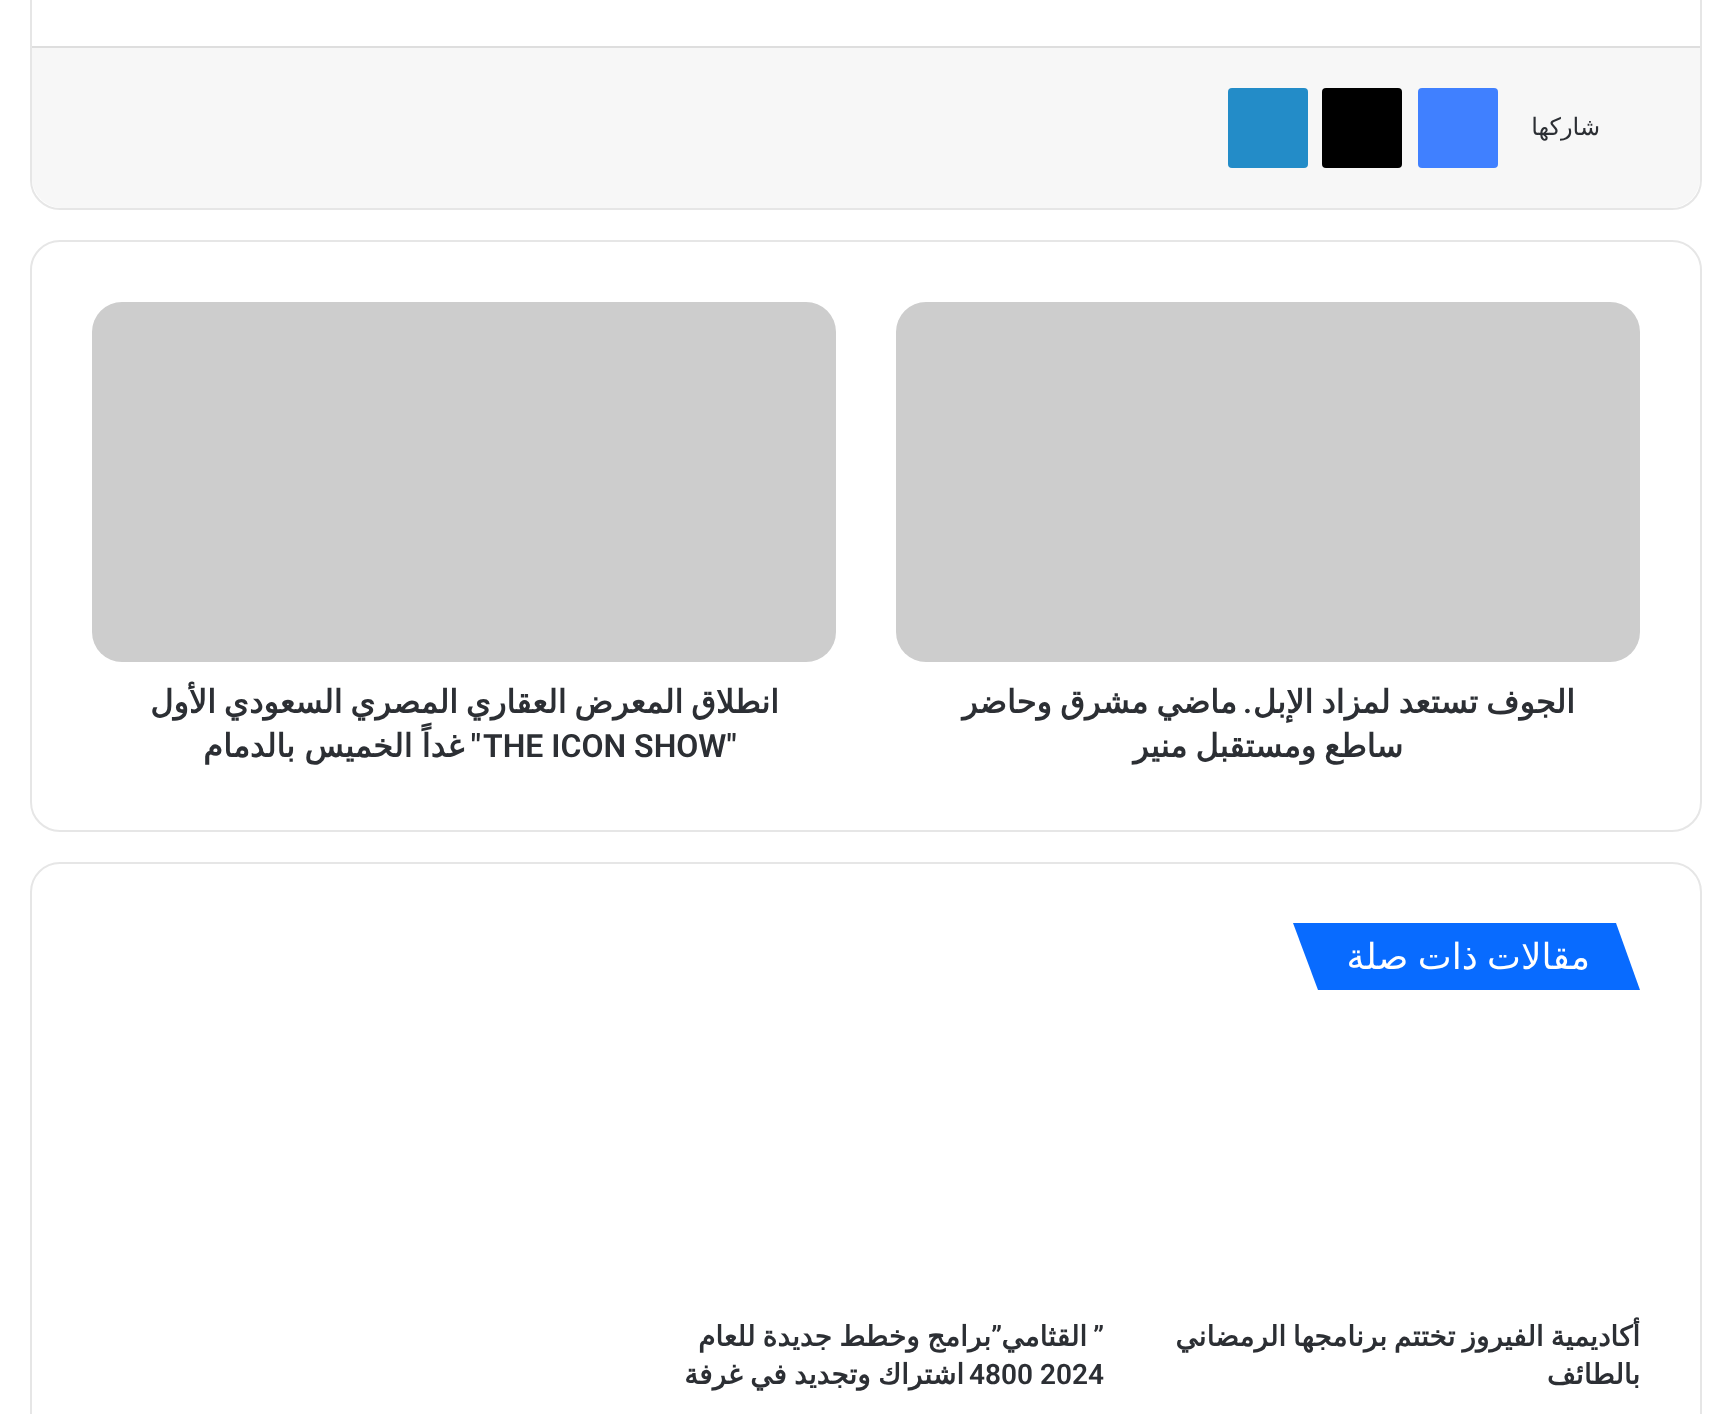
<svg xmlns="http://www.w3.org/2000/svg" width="1731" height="1414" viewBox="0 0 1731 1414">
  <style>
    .t1 { font: 24px DejaVu Sans; direction: rtl; fill: #2c2f34; }
    .t2 { font: bold 32px DejaVu Sans; direction: rtl; fill: #2c2f34; }
    .t3 { font: 600 32px Roboto; direction: rtl; fill: #2c2f34; }
    .t4 { font: 600 32px Roboto; fill: #2c2f34; }
    .t5 { font: 36px DejaVu Sans; direction: rtl; fill: #fff; }
    .t6 { font: bold 28px DejaVu Sans; direction: rtl; fill: #2c2f34; }
    .t7 { font: 600 28px Roboto; direction: rtl; fill: #2c2f34; }
    .t8 { font: 600 28px Roboto; fill: #2c2f34; }
  </style>
  <rect width="100%" height="100%" fill="#fff"/>
  <rect x="31" y="-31" width="1670" height="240" rx="29" fill="none" stroke="#e6e6e6" stroke-width="2"/>
  <path d="M32 46H1700V178C1700 194.5 1686.5 208 1670 208H62C45.5 208 32 194.5 32 178Z" fill="#f7f7f7"/>
  <rect x="32" y="46" width="1668" height="2" fill="#dedede"/>
  <text x="1600" y="135" class="t1">شاركها</text>
  <rect x="1418" y="88" width="80" height="80" rx="4" fill="#4080ff"/>
  <rect x="1322" y="88" width="80" height="80" rx="4" fill="#000"/>
  <rect x="1228" y="88" width="80" height="80" rx="4" fill="#238cc8"/>
  <rect x="31" y="241" width="1670" height="590" rx="29" fill="none" stroke="#e6e6e6" stroke-width="2"/>
  <rect x="896" y="302" width="744" height="360" rx="30" fill="#cdcdcd"/>
  <text x="1575" y="713" word-spacing="-2" class="t2">الجوف تستعد لمزاد الإبل</text>
  <text x="1252" y="713" class="t3">.</text>
  <text x="1237" y="713" word-spacing="-2" class="t2">ماضي مشرق وحاضر</text>
  <text x="1403" y="757" word-spacing="-2.25" class="t2">ساطع ومستقبل منير</text>
  <rect x="92" y="302" width="744" height="360" rx="30" fill="#cdcdcd"/>
  <text x="779" y="713" word-spacing="-2.25" class="t2">انطلاق المعرض العقاري المصري السعودي الأول</text>
  <text x="483" y="757" class="t4">THE ICON SHOW"</text>
  <text x="481" y="757" class="t3">"</text>
  <text x="464" y="757" word-spacing="-1" class="t2">غداً الخميس بالدمام</text>
  <rect x="31" y="863" width="1670" height="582" rx="29" fill="none" stroke="#e6e6e6" stroke-width="2"/>
  <path d="M1293 923H1616L1640 990H1318Z" fill="#086bff"/>
  <text x="1590" y="969" word-spacing="-2" class="t5">مقالات ذات صلة</text>
  <text x="1640" y="1346" word-spacing="-2" class="t6">أكاديمية الفيروز تختتم برنامجها الرمضاني</text>
  <text x="1640" y="1384" class="t6">بالطائف</text>
  <text x="1104" y="1346" class="t7">”</text>
  <text x="1087" y="1346" class="t6">القثامي</text>
  <text x="991" y="1346" word-spacing="-1.5" class="t6">برامج وخطط جديدة للعام</text>
  <text x="1002" y="1346" class="t7">”</text>
  <text x="969" y="1384" class="t8">4800 2024</text>
  <text x="964" y="1384" word-spacing="-1.5" class="t6">اشتراك وتجديد في غرفة</text>
</svg>
